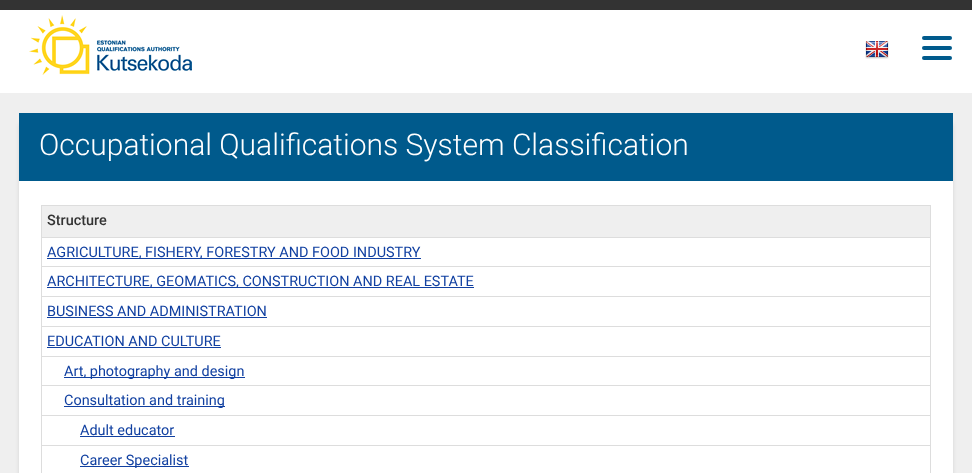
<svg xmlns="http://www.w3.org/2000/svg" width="972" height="473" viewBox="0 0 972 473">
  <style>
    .t1 { font: 300 30px Roboto; fill: #fff; }
    .t2 { font: 500 14.45px Roboto; fill: #333; }
    .t3 { font: 14.45px Roboto; fill: #1140a1; }
  </style>
  <rect width="100%" height="100%" fill="#efefef"/>
  <rect x="0" y="0" width="972" height="10" fill="#333"/>
  <rect x="0" y="10" width="972" height="83" fill="#fff"/>
  <image x="29" y="15" width="163" height="60" href="images/1.png"/>
  <image x="865" y="41" width="24" height="18" href="images/2.png"/>
  <rect x="922" y="36" width="30" height="4" rx="2" fill="#005a8c"/>
  <rect x="922" y="46" width="30" height="4" rx="2" fill="#005a8c"/>
  <rect x="922" y="56" width="30" height="4" rx="2" fill="#005a8c"/>
  <rect x="19" y="124" width="934" height="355" fill="#0000001a" filter="blur(2px)"/>
  <rect x="19" y="181" width="934" height="292" fill="#fff"/>
  <rect x="19" y="113" width="934" height="68" fill="#005a8c"/>
  <text x="39" y="155" class="t1">Occupational Qualifications System Classification</text>
  <rect x="41" y="205" width="890" height="1" fill="#ddd"/>
  <rect x="930" y="205" width="1" height="268" fill="#ddd"/>
  <rect x="41" y="205" width="1" height="268" fill="#ddd"/>
  <rect x="42" y="206" width="888" height="31" fill="#efefef"/>
  <rect x="41" y="237" width="890" height="1" fill="#ddd"/>
  <text x="47" y="225" class="t2">Structure</text>
  <rect x="41" y="266" width="890" height="1" fill="#ddd"/>
  <rect x="47" y="258" width="374" height="1" fill="#1140a1"/>
  <text x="47" y="257" class="t3">AGRICULTURE, FISHERY, FORESTRY AND FOOD INDUSTRY</text>
  <rect x="41" y="296" width="890" height="1" fill="#ddd"/>
  <rect x="47" y="287" width="427" height="1" fill="#1140a1"/>
  <text x="47" y="286" class="t3">ARCHITECTURE, GEOMATICS, CONSTRUCTION AND REAL ESTATE</text>
  <rect x="41" y="326" width="890" height="1" fill="#ddd"/>
  <text x="47" y="316" class="t3">BUSINESS AND ADMINISTRATION</text>
  <rect x="47" y="317" width="220" height="1" fill="#1140a1"/>
  <rect x="41" y="356" width="890" height="1" fill="#ddd"/>
  <text x="47" y="346" class="t3">EDUCATION AND CULTURE</text>
  <rect x="47" y="347" width="174" height="1" fill="#1140a1"/>
  <rect x="41" y="385" width="890" height="1" fill="#ddd"/>
  <rect x="64" y="377" width="181" height="1" fill="#1140a1"/>
  <text x="64" y="376" class="t3">Art, photography and design</text>
  <rect x="41" y="415" width="890" height="1" fill="#ddd"/>
  <rect x="64" y="406" width="161" height="1" fill="#1140a1"/>
  <text x="64" y="405" class="t3">Consultation and training</text>
  <rect x="41" y="445" width="890" height="1" fill="#ddd"/>
  <text x="80" y="435" class="t3">Adult educator</text>
  <rect x="80" y="436" width="95" height="1" fill="#1140a1"/>
  <rect x="80" y="466" width="109" height="1" fill="#1140a1"/>
  <text x="80" y="465" class="t3">Career Specialist</text>
</svg>
